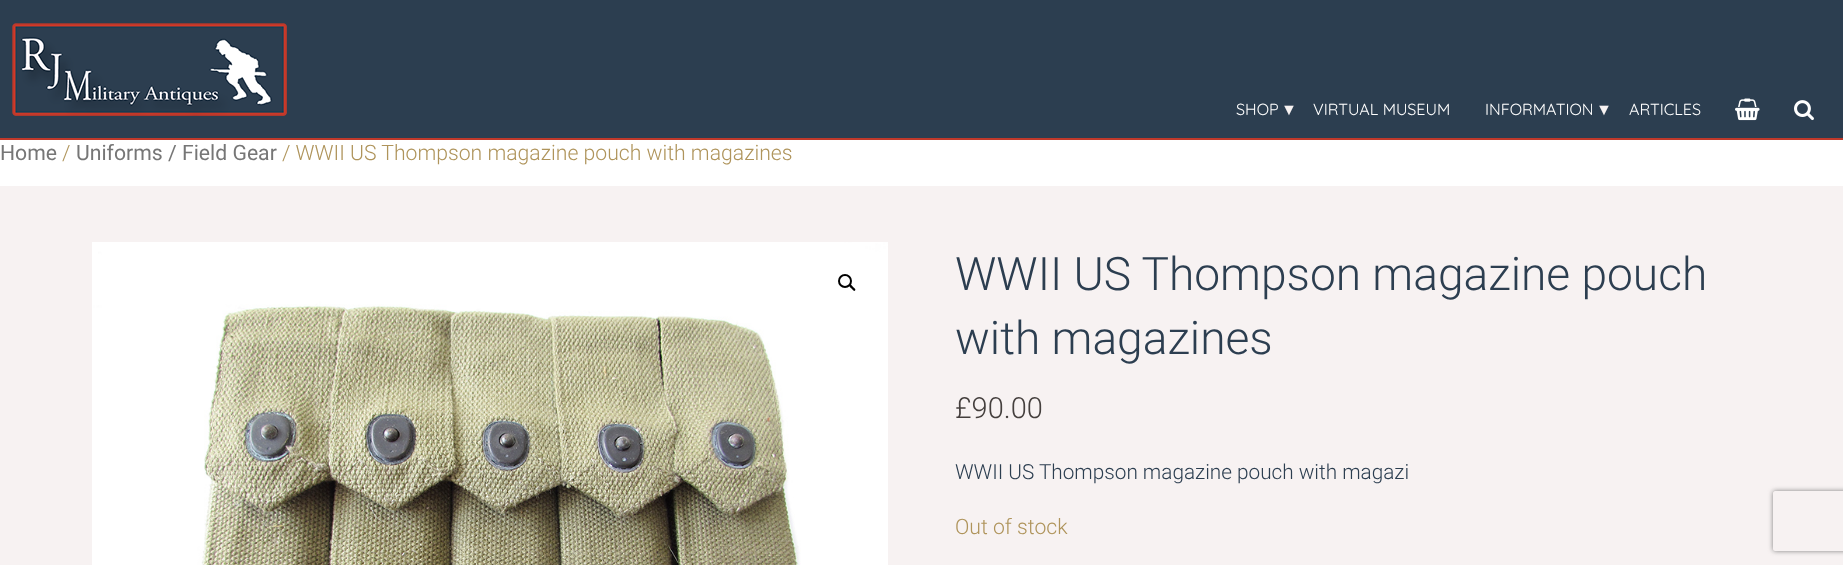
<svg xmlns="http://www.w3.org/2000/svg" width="1843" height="565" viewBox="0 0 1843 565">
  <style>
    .t1 { font: 16.1px Quicksand; fill: #fff; }
    .t2 { font: 16.1px Liberation Sans; fill: #f7f2f2; }
    .t3 { font: 21.2px Roboto; fill: #767676; }
    .t4 { font: 300 21.2px Roboto; fill: #af945b; }
    .t5 { font: 300 46.1px Roboto; fill: #2c3e50; }
    .t6 { font: 300 29px Roboto; fill: #443f3d; }
    .t7 { font: 300 20.75px Roboto; fill: #2c3e50; }
  </style>
  <defs>
    <clipPath id="clip1"><path d="M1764 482H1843V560H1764ZM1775 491H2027C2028 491 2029 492 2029 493V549C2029 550 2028 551 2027 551H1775C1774 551 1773 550 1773 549V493C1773 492 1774 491 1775 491Z" clip-rule="evenodd"/></clipPath>
  </defs>
  <rect width="100%" height="100%" fill="#fff"/>
  <rect x="0" y="0" width="1843" height="138" fill="#2c3e50"/>
  <rect x="0" y="138" width="1843" height="2" fill="#c0392b"/>
  <image x="12" y="23" width="275" height="93" href="images/1.png"/>
  <text x="1236" y="115" class="t1">SHOP</text>
  <text x="1281" y="115" class="t2">▼</text>
  <text x="1313" y="115" class="t1">VIRTUAL MUSEUM</text>
  <text x="1485" y="115" class="t1">INFORMATION</text>
  <text x="1596" y="115" class="t2">▼</text>
  <text x="1629" y="115" class="t1">ARTICLES</text>
  <image x="1735" y="98" width="25" height="23" href="images/2.png"/>
  <image x="1794" y="100" width="20" height="21" href="images/3.png"/>
  <text x="0" y="160" class="t3">Home</text>
  <text x="62" y="160" class="t4">/</text>
  <text x="76" y="160" class="t3">Uniforms / Field Gear</text>
  <text x="282" y="160" class="t4">/ WWII US Thompson magazine pouch with magazines</text>
  <rect x="0" y="186" width="1843" height="379" fill="#f7f2f2"/>
  <image x="92" y="242" width="796" height="323" href="images/4.png"/>
  <circle cx="845" cy="281" r="6" fill="none" stroke="#000" stroke-width="2"/>
  <path d="M849.5 285C850.5 283.5 852.5 286.5 853 287C853.5 287.5 856.5 289.5 855 290.5C854 292 852 289 851.5 288.5C851 288 848.5 286 849.5 285Z" fill="#000"/>
  <text x="955" y="290" class="t5">WWII US Thompson magazine pouch</text>
  <text x="955" y="354" class="t5">with magazines</text>
  <text x="955" y="418" class="t6">£90.00</text>
  <text x="955" y="479" class="t7">WWII US Thompson magazine pouch with magazi</text>
  <text x="955" y="534" class="t4">Out of stock</text>
  <g clip-path="url(#clip1)">
    <rect x="1773" y="491" width="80" height="60" rx="2" fill="#808080" filter="blur(2.5px)"/>
  </g>
</svg>
